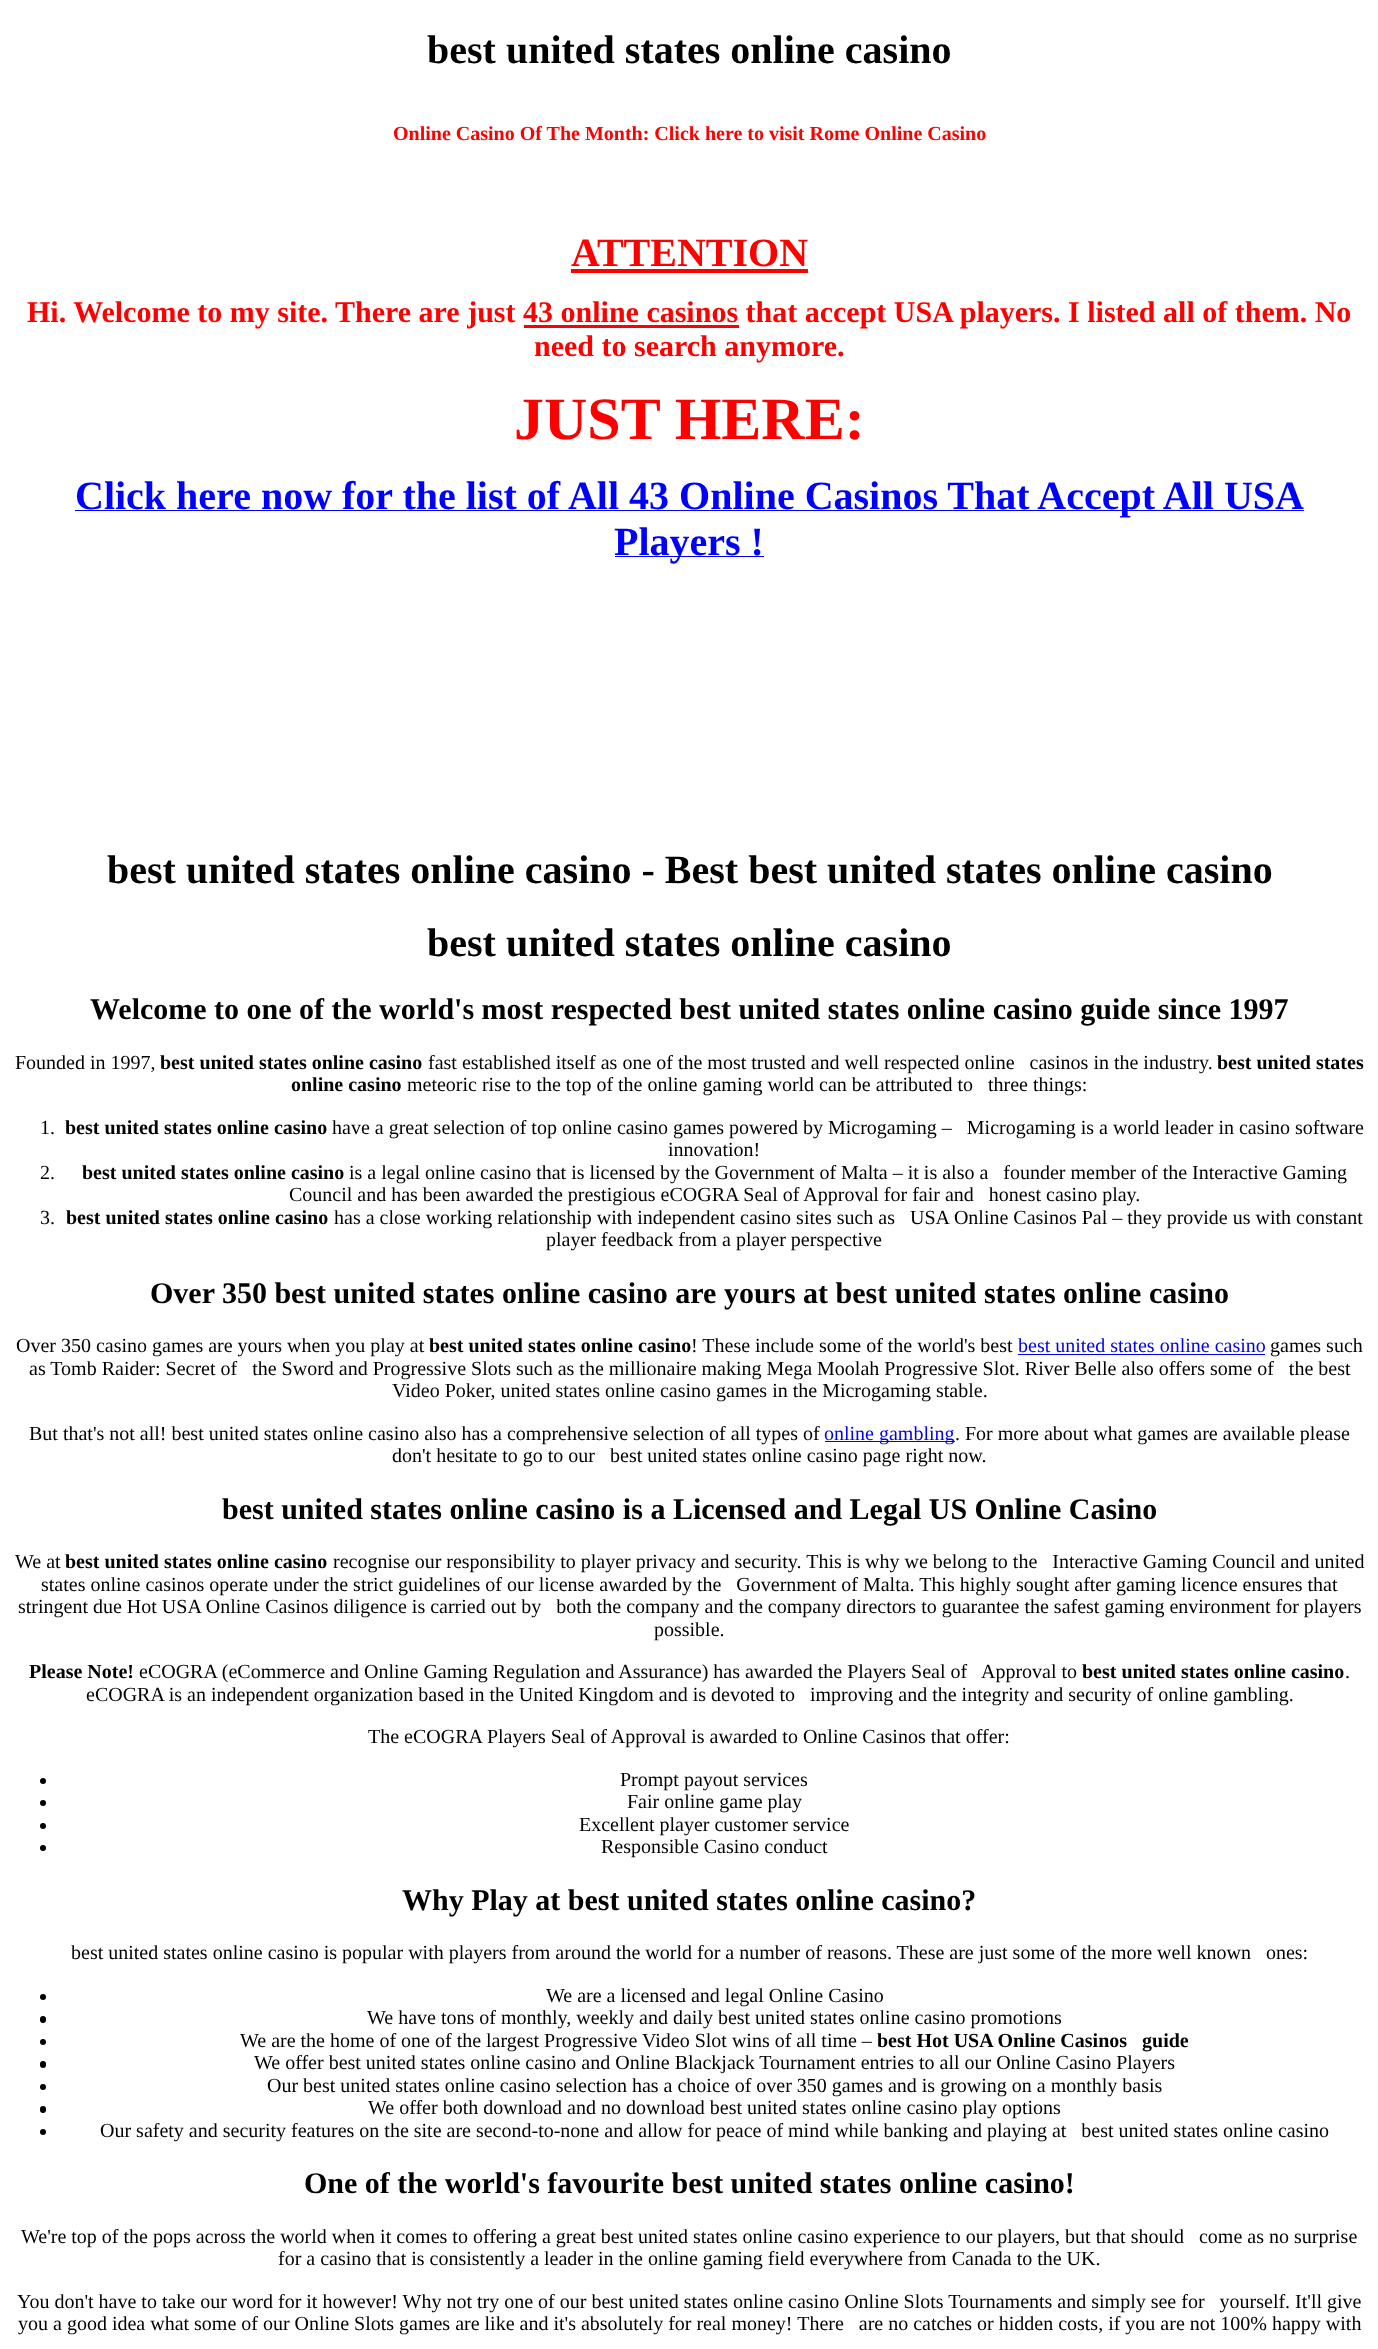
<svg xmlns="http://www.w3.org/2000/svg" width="1378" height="2349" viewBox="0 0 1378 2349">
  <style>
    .t1 { font: bold 40px Liberation Serif; fill: #000; }
    .t2 { font: bold 20px Liberation Serif; fill: #f00; }
    .t3 { font: bold 40px Liberation Serif; fill: #f00; }
    .t4 { font: bold 30px Liberation Serif; fill: #f00; }
    .t5 { font: bold 60px Liberation Serif; fill: #f00; }
    .t6 { font: bold 40px Liberation Serif; fill: #00f; }
    .t7 { font: bold 30px Liberation Serif; fill: #000; }
    .t8 { font: 20px Liberation Serif; fill: #000; }
    .t9 { font: bold 20px Liberation Serif; fill: #000; }
    .t10 { font: 20px Liberation Serif; fill: #00e; }
  </style>
  <rect width="100%" height="100%" fill="#fff"/>
  <text x="427" y="63" class="t1">best united states online casino</text>
  <text x="393" y="140" class="t2">Online Casino Of The Month: Click here to visit Rome Online Casino</text>
  <text x="571" y="266" class="t3">ATTENTION</text>
  <rect x="571" y="269" width="237" height="4" fill="#f00"/>
  <text x="27" y="322" class="t4">Hi. Welcome to my site. There are just 43 online casinos that accept USA players. I listed all of them. No</text>
  <rect x="524" y="325" width="215" height="3" fill="#f00"/>
  <text x="534" y="356" class="t4">need to search anymore.</text>
  <text x="514" y="439" class="t5">JUST HERE:</text>
  <rect x="75" y="510" width="1229" height="1" fill="#00e"/>
  <text x="75" y="509" class="t6">Click here now for the list of All 43 Online Casinos That Accept All USA</text>
  <rect x="615" y="556" width="149" height="1" fill="#00e"/>
  <text x="614" y="555" class="t6">Players !</text>
  <text x="107" y="883" class="t1">best united states online casino - Best best united states online casino</text>
  <text x="427" y="956" class="t1">best united states online casino</text>
  <text x="90" y="1019" class="t7">Welcome to one of the world's most respected best united states online casino guide since 1997</text>
  <text x="15" y="1069" class="t8">Founded in 1997,</text>
  <text x="160" y="1069" class="t9">best united states online casino</text>
  <text x="428" y="1069" class="t8" xml:space="preserve">fast established itself as one of the most trusted and well respected online   casinos in the industry.</text>
  <text x="1217" y="1069" class="t9">best united states</text>
  <text x="291" y="1091" class="t9">online casino</text>
  <text x="407" y="1091" class="t8" xml:space="preserve">meteoric rise to the top of the online gaming world can be attributed to   three things:</text>
  <text x="40" y="1134" class="t8">1.</text>
  <text x="65" y="1134" class="t9">best united states online casino</text>
  <text x="332" y="1134" class="t8" xml:space="preserve">have a great selection of top online casino games powered by Microgaming –   Microgaming is a world leader in casino software</text>
  <text x="668" y="1156" class="t8">innovation!</text>
  <text x="40" y="1179" class="t8">2.</text>
  <text x="82" y="1179" class="t9">best united states online casino</text>
  <text x="349" y="1179" class="t8" xml:space="preserve">is a legal online casino that is licensed by the Government of Malta – it is also a   founder member of the Interactive Gaming</text>
  <text x="289" y="1201" class="t8" xml:space="preserve">Council and has been awarded the prestigious eCOGRA Seal of Approval for fair and   honest casino play.</text>
  <text x="40" y="1224" class="t8">3.</text>
  <text x="66" y="1224" class="t9">best united states online casino</text>
  <text x="334" y="1224" class="t8" xml:space="preserve">has a close working relationship with independent casino sites such as   USA Online Casinos Pal – they provide us with constant</text>
  <text x="546" y="1246" class="t8">player feedback from a player perspective</text>
  <text x="150" y="1303" class="t7">Over 350 best united states online casino are yours at best united states online casino</text>
  <text x="16" y="1352" class="t8">Over 350 casino games are yours when you play at</text>
  <text x="429" y="1352" class="t9">best united states online casino</text>
  <text x="691" y="1352" class="t8">! These include some of the world's best</text>
  <text x="1018" y="1352" class="t10">best united states online casino</text>
  <rect x="1018" y="1354" width="247" height="1" fill="#00e"/>
  <text x="1270" y="1352" class="t8">games such</text>
  <text x="29" y="1375" class="t8" xml:space="preserve">as Tomb Raider: Secret of   the Sword and Progressive Slots such as the millionaire making Mega Moolah Progressive Slot. River Belle also offers some of   the best</text>
  <text x="392" y="1397" class="t8">Video Poker, united states online casino games in the Microgaming stable.</text>
  <text x="29" y="1440" class="t8">But that's not all! best united states online casino also has a comprehensive selection of all types of</text>
  <rect x="825" y="1441" width="130" height="1" fill="#00e"/>
  <text x="824" y="1440" class="t10">online gambling</text>
  <text x="955" y="1440" class="t8">. For more about what games are available please</text>
  <text x="392" y="1462" class="t8" xml:space="preserve">don't hesitate to go to our   best united states online casino page right now.</text>
  <text x="222" y="1519" class="t7">best united states online casino is a Licensed and Legal US Online Casino</text>
  <text x="15" y="1568" class="t8">We at</text>
  <text x="65" y="1568" class="t9">best united states online casino</text>
  <text x="333" y="1568" class="t8" xml:space="preserve">recognise our responsibility to player privacy and security. This is why we belong to the   Interactive Gaming Council and united</text>
  <text x="41" y="1591" class="t8" xml:space="preserve">states online casinos operate under the strict guidelines of our license awarded by the   Government of Malta. This highly sought after gaming licence ensures that</text>
  <text x="18" y="1613" class="t8" xml:space="preserve">stringent due Hot USA Online Casinos diligence is carried out by   both the company and the company directors to guarantee the safest gaming environment for players</text>
  <text x="654" y="1636" class="t8">possible.</text>
  <text x="29" y="1678" class="t9">Please Note!</text>
  <text x="139" y="1678" class="t8" xml:space="preserve">eCOGRA (eCommerce and Online Gaming Regulation and Assurance) has awarded the Players Seal of   Approval to</text>
  <text x="1082" y="1678" class="t9">best united states online casino</text>
  <text x="1345" y="1678" class="t8">.</text>
  <text x="86" y="1701" class="t8" xml:space="preserve">eCOGRA is an independent organization based in the United Kingdom and is devoted to   improving and the integrity and security of online gambling.</text>
  <text x="368" y="1743" class="t8">The eCOGRA Players Seal of Approval is awarded to Online Casinos that offer:</text>
  <circle cx="43" cy="1781" r="3" fill="#000"/>
  <text x="620" y="1786" class="t8">Prompt payout services</text>
  <circle cx="43" cy="1803" r="3" fill="#000"/>
  <text x="627" y="1808" class="t8">Fair online game play</text>
  <circle cx="43" cy="1826" r="3" fill="#000"/>
  <text x="579" y="1831" class="t8">Excellent player customer service</text>
  <circle cx="43" cy="1848" r="3" fill="#000"/>
  <text x="601" y="1853" class="t8">Responsible Casino conduct</text>
  <text x="402" y="1910" class="t7">Why Play at best united states online casino?</text>
  <text x="71" y="1959" class="t8" xml:space="preserve">best united states online casino is popular with players from around the world for a number of reasons. These are just some of the more well known   ones:</text>
  <circle cx="43" cy="1997" r="3" fill="#000"/>
  <text x="546" y="2002" class="t8">We are a licensed and legal Online Casino</text>
  <rect x="40" y="2016" width="6" height="7" rx="3" fill="#000"/>
  <text x="367" y="2024" class="t8">We have tons of monthly, weekly and daily best united states online casino promotions</text>
  <circle cx="43" cy="2042" r="3" fill="#000"/>
  <text x="240" y="2047" class="t8">We are the home of one of the largest Progressive Video Slot wins of all time –</text>
  <text x="877" y="2047" class="t9" xml:space="preserve">best Hot USA Online Casinos   guide</text>
  <rect x="40" y="2061" width="6" height="7" rx="3" fill="#000"/>
  <text x="254" y="2069" class="t8">We offer best united states online casino and Online Blackjack Tournament entries to all our Online Casino Players</text>
  <circle cx="43" cy="2087" r="3" fill="#000"/>
  <text x="267" y="2092" class="t8">Our best united states online casino selection has a choice of over 350 games and is growing on a monthly basis</text>
  <rect x="40" y="2106" width="6" height="7" rx="3" fill="#000"/>
  <text x="368" y="2114" class="t8">We offer both download and no download best united states online casino play options</text>
  <circle cx="43" cy="2132" r="3" fill="#000"/>
  <text x="100" y="2137" class="t8" xml:space="preserve">Our safety and security features on the site are second-to-none and allow for peace of mind while banking and playing at   best united states online casino</text>
  <text x="304" y="2193" class="t7">One of the world's favourite best united states online casino!</text>
  <text x="21" y="2243" class="t8" xml:space="preserve">We're top of the pops across the world when it comes to offering a great best united states online casino experience to our players, but that should   come as no surprise</text>
  <text x="278" y="2265" class="t8">for a casino that is consistently a leader in the online gaming field everywhere from Canada to the UK.</text>
  <text x="17" y="2308" class="t8" xml:space="preserve">You don't have to take our word for it however! Why not try one of our best united states online casino Online Slots Tournaments and simply see for   yourself. It'll give</text>
  <text x="18" y="2330" class="t8" xml:space="preserve">you a good idea what some of our Online Slots games are like and it's absolutely for real money! There   are no catches or hidden costs, if you are not 100% happy with</text>
</svg>
